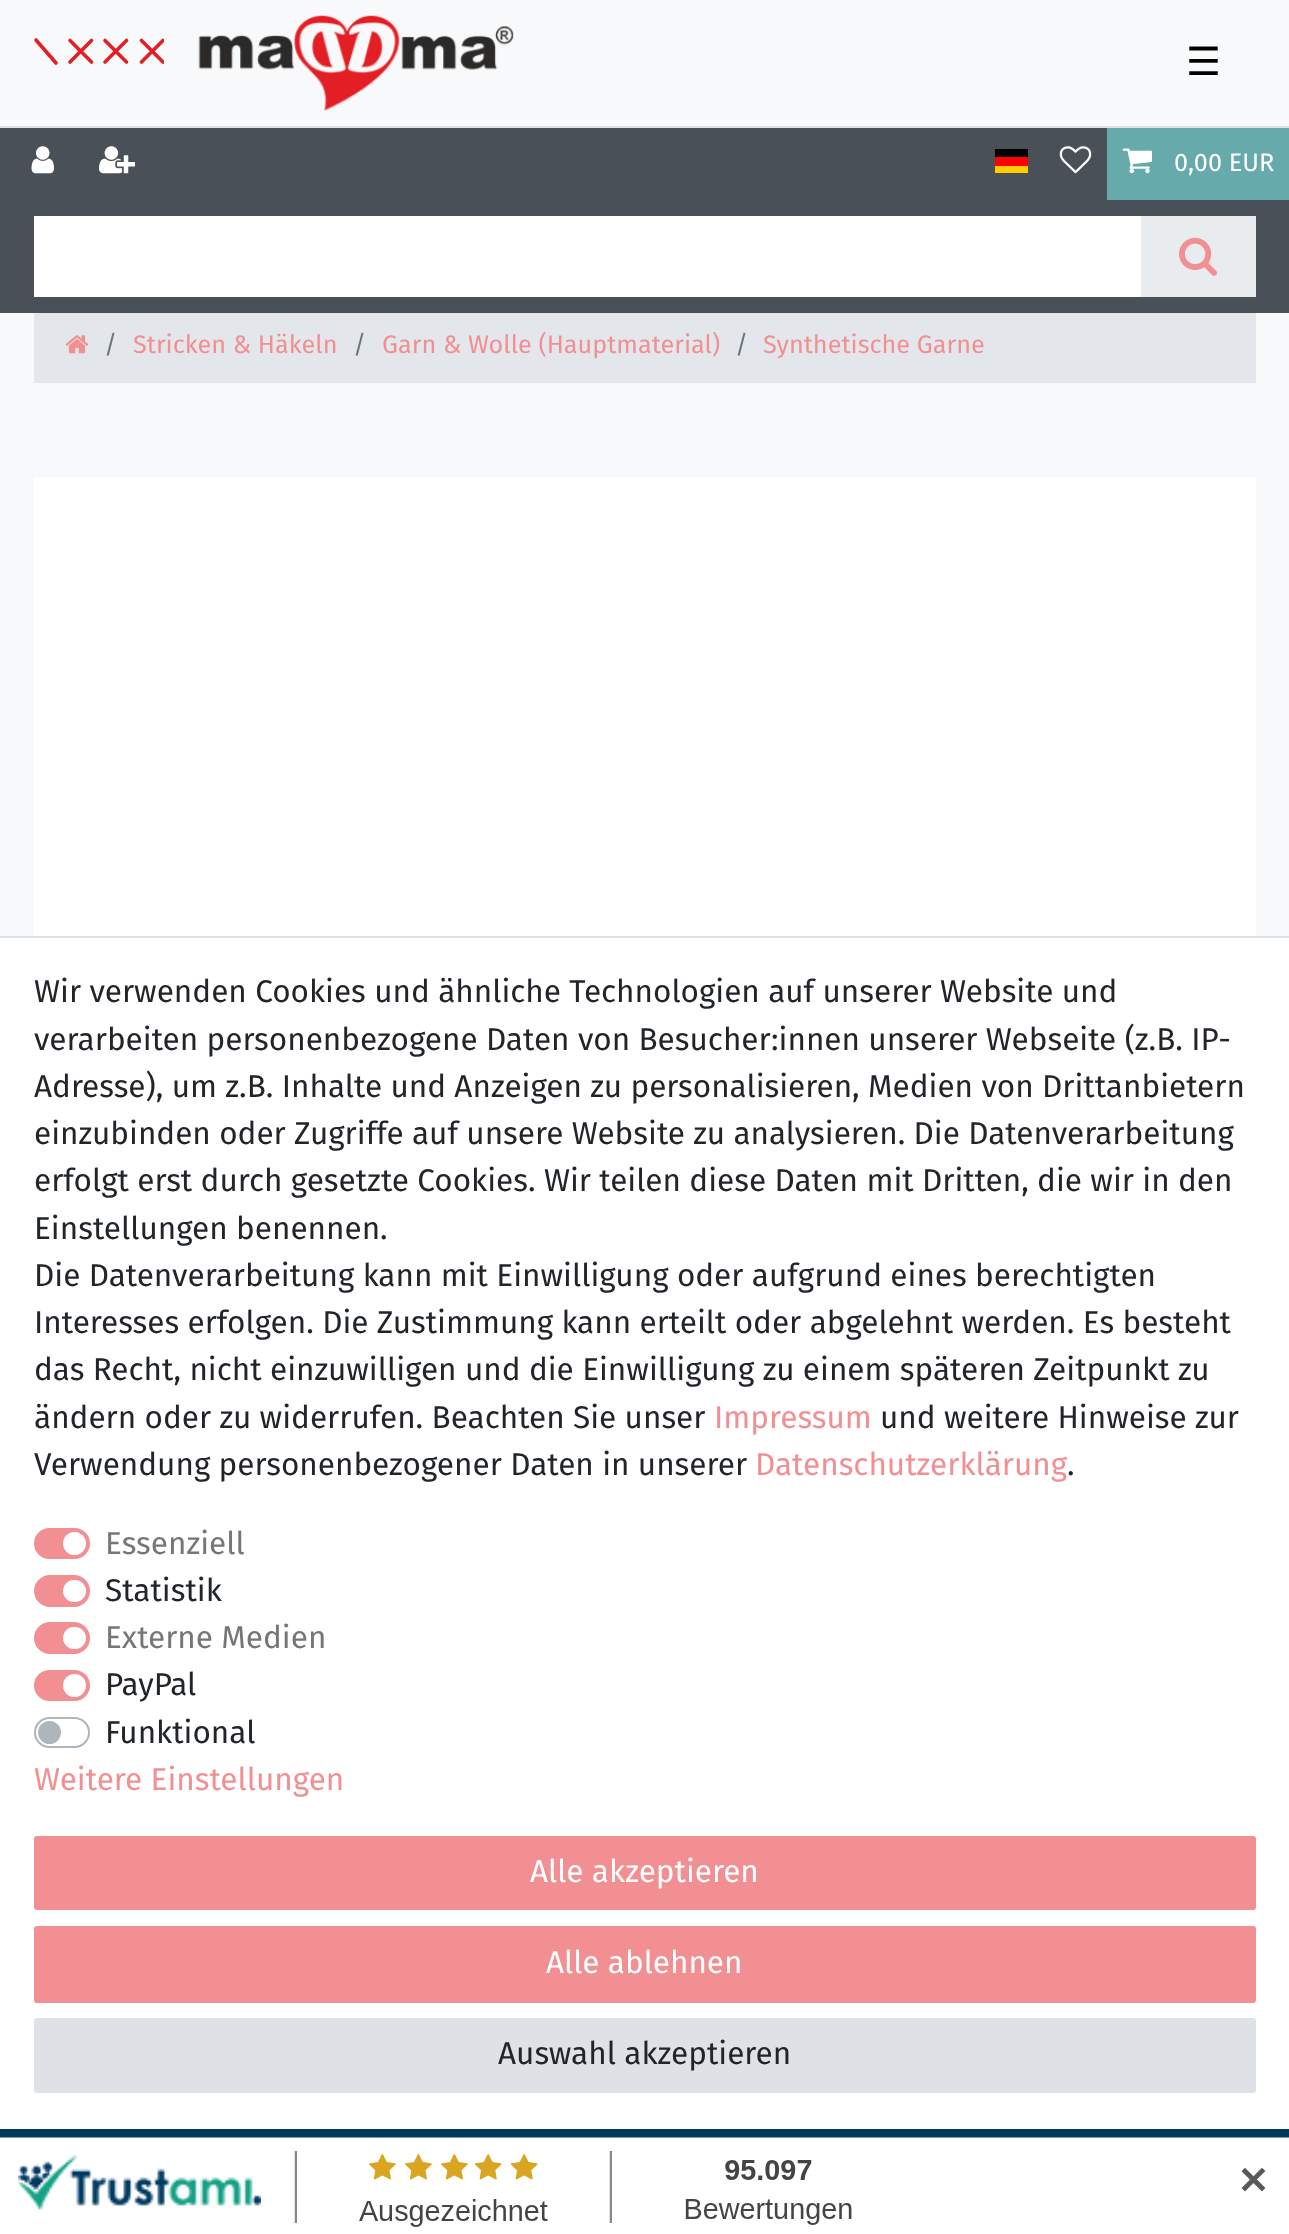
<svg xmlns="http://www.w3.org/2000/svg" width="1289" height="2234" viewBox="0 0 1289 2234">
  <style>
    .t1 { font: 39px DejaVu Sans; fill: #000; }
    .t2 { font: 25.25px Fira Sans; fill: #fff; }
    .t3 { font: 25.25px Fira Sans; fill: #6c757d; }
    .t4 { font: 25.25px Fira Sans; fill: #f18f92; }
    .t5 { font: 31.5px Fira Sans; fill: #212529; }
    .t6 { font: 31.5px Fira Sans; fill: #f18f92; }
    .t7 { font: 31.5px Fira Sans; fill: #767676; }
    .t8 { font: 31.5px Fira Sans; fill: #fff; }
    .t9 { font: bold 38px DejaVu Sans; fill: #595959; }
  </style>
  <defs>
    <clipPath id="clip1"><rect x="34" y="38" width="130" height="27"/></clipPath>
  </defs>
  <rect width="100%" height="100%" fill="#f8f9fa"/>
  <rect x="0" y="126" width="1289" height="2" fill="#dee2e6"/>
  <g clip-path="url(#clip1)">
    <path d="M163 40.5L141.5 62M141.5 40.5L163 62" fill="none" stroke="#e31f25" stroke-width="3.6" stroke-linecap="round"/>
  </g>
  <path d="M126.5 40.5L105 62M105 40.5L126.5 62M91.5 40.5L70 62" fill="none" stroke="#e31f25" stroke-width="3.6" stroke-linecap="round"/>
  <path d="M36 40L56 63M70 40.5L91.5 62" fill="none" stroke="#e31f25" stroke-width="3.6" stroke-linecap="round"/>
  <image x="198" y="15" width="316" height="96" href="images/1.png"/>
  <text x="1186" y="75" class="t1">☰</text>
  <rect x="0" y="128" width="1289" height="185" fill="#495057"/>
  <image x="31" y="146" width="23" height="28" href="images/2.png"/>
  <image x="99" y="146" width="36" height="28" href="images/3.png"/>
  <rect x="995" y="166" width="33" height="7" fill="#fc0"/>
  <rect x="995" y="149" width="33" height="8" fill="#000"/>
  <rect x="995" y="157" width="33" height="9" fill="#f00"/>
  <image x="1059" y="146" width="33" height="28" href="images/4.png"/>
  <rect x="1107" y="128" width="182" height="72" fill="#67aaac"/>
  <image x="1122" y="148" width="30" height="26" href="images/5.png"/>
  <text x="1174" y="171" class="t2">0,00 EUR</text>
  <rect x="34" y="216" width="1107" height="81" fill="#fff"/>
  <rect x="1141" y="216" width="115" height="81" fill="#e9ecef"/>
  <image x="1179" y="237" width="38" height="39" href="images/6.png"/>
  <rect x="34" y="313" width="1222" height="70" fill="#e3e7eb"/>
  <image x="65" y="335" width="24" height="19" href="images/7.png"/>
  <text x="104" y="353" class="t3">/</text>
  <text x="133" y="353" class="t4">Stricken &amp; Häkeln</text>
  <text x="353" y="353" class="t3">/</text>
  <text x="382" y="353" class="t4">Garn &amp; Wolle (Hauptmaterial)</text>
  <text x="735" y="353" class="t3">/</text>
  <text x="763" y="353" class="t4">Synthetische Garne</text>
  <rect x="34" y="477" width="1222" height="459" fill="#fff"/>
  <rect x="0" y="938" width="1289" height="1296" fill="#fff"/>
  <rect x="0" y="936" width="1289" height="2" fill="#dee2e6"/>
  <text x="34" y="1002" class="t5">Wir verwenden Cookies und ähnliche Technologien auf unserer Website und</text>
  <text x="34" y="1050" class="t5">verarbeiten personenbezogene Daten von Besucher:innen unserer Webseite (z.B. IP-</text>
  <text x="34" y="1097" class="t5">Adresse), um z.B. Inhalte und Anzeigen zu personalisieren, Medien von Drittanbietern</text>
  <text x="34" y="1144" class="t5">einzubinden oder Zugriffe auf unsere Website zu analysieren. Die Datenverarbeitung</text>
  <text x="34" y="1191" class="t5">erfolgt erst durch gesetzte Cookies. Wir teilen diese Daten mit Dritten, die wir in den</text>
  <text x="34" y="1239" class="t5">Einstellungen benennen.</text>
  <text x="34" y="1286" class="t5">Die Datenverarbeitung kann mit Einwilligung oder aufgrund eines berechtigten</text>
  <text x="34" y="1333" class="t5">Interesses erfolgen. Die Zustimmung kann erteilt oder abgelehnt werden. Es besteht</text>
  <text x="34" y="1380" class="t5">das Recht, nicht einzuwilligen und die Einwilligung zu einem späteren Zeitpunkt zu</text>
  <text x="34" y="1428" class="t5">ändern oder zu widerrufen. Beachten Sie unser</text>
  <text x="714" y="1428" class="t6">Impressum</text>
  <text x="880" y="1428" class="t5">und weitere Hinweise zur</text>
  <text x="34" y="1475" class="t5">Verwendung personenbezogener Daten in unserer</text>
  <text x="755" y="1475" class="t6">Datenschutzerklärung</text>
  <text x="1067" y="1475" class="t5">.</text>
  <rect x="35" y="1529" width="54" height="29" rx="14.5" fill="#f18f92" stroke="#f18f92" stroke-width="2"/>
  <text x="105" y="1554" class="t7">Essenziell</text>
  <circle cx="74.5" cy="1543.5" r="11.5" fill="#fff"/>
  <rect x="35" y="1576" width="54" height="30" rx="15" fill="#f18f92" stroke="#f18f92" stroke-width="2"/>
  <text x="105" y="1601" class="t5">Statistik</text>
  <rect x="63" y="1580" width="23" height="22" rx="11" fill="#fff"/>
  <rect x="35" y="1623" width="54" height="30" rx="15" fill="#f18f92" stroke="#f18f92" stroke-width="2"/>
  <text x="105" y="1648" class="t7">Externe Medien</text>
  <rect x="63" y="1627" width="23" height="22" rx="11" fill="#fff"/>
  <rect x="35" y="1671" width="54" height="29" rx="14.5" fill="#f18f92" stroke="#f18f92" stroke-width="2"/>
  <text x="105" y="1695" class="t5">PayPal</text>
  <circle cx="74.5" cy="1685.5" r="11.5" fill="#fff"/>
  <rect x="35" y="1718" width="54" height="29" rx="14.5" fill="none" stroke="#adb5bd" stroke-width="2"/>
  <text x="105" y="1743" class="t5">Funktional</text>
  <circle cx="49.5" cy="1732.5" r="11.5" fill="#adb5bd"/>
  <text x="34" y="1790" class="t6">Weitere Einstellungen</text>
  <rect x="35" y="1837" width="1220" height="72" rx="2" fill="#f18f92" stroke="#f18f92" stroke-width="2"/>
  <text x="530" y="1882" class="t8">Alle akzeptieren</text>
  <rect x="35" y="1927" width="1220" height="75" rx="2" fill="#f18f92" stroke="#f18f92" stroke-width="2"/>
  <text x="546" y="1973" class="t8">Alle ablehnen</text>
  <rect x="35" y="2019" width="1220" height="73" rx="2" fill="#dee2e6" stroke="#dee2e6" stroke-width="2"/>
  <text x="498" y="2064" class="t5">Auswahl akzeptieren</text>
  <image x="0" y="2129" width="1289" height="98" href="images/8.png"/>
  <text x="1237" y="2194" class="t9">✕</text>
</svg>
